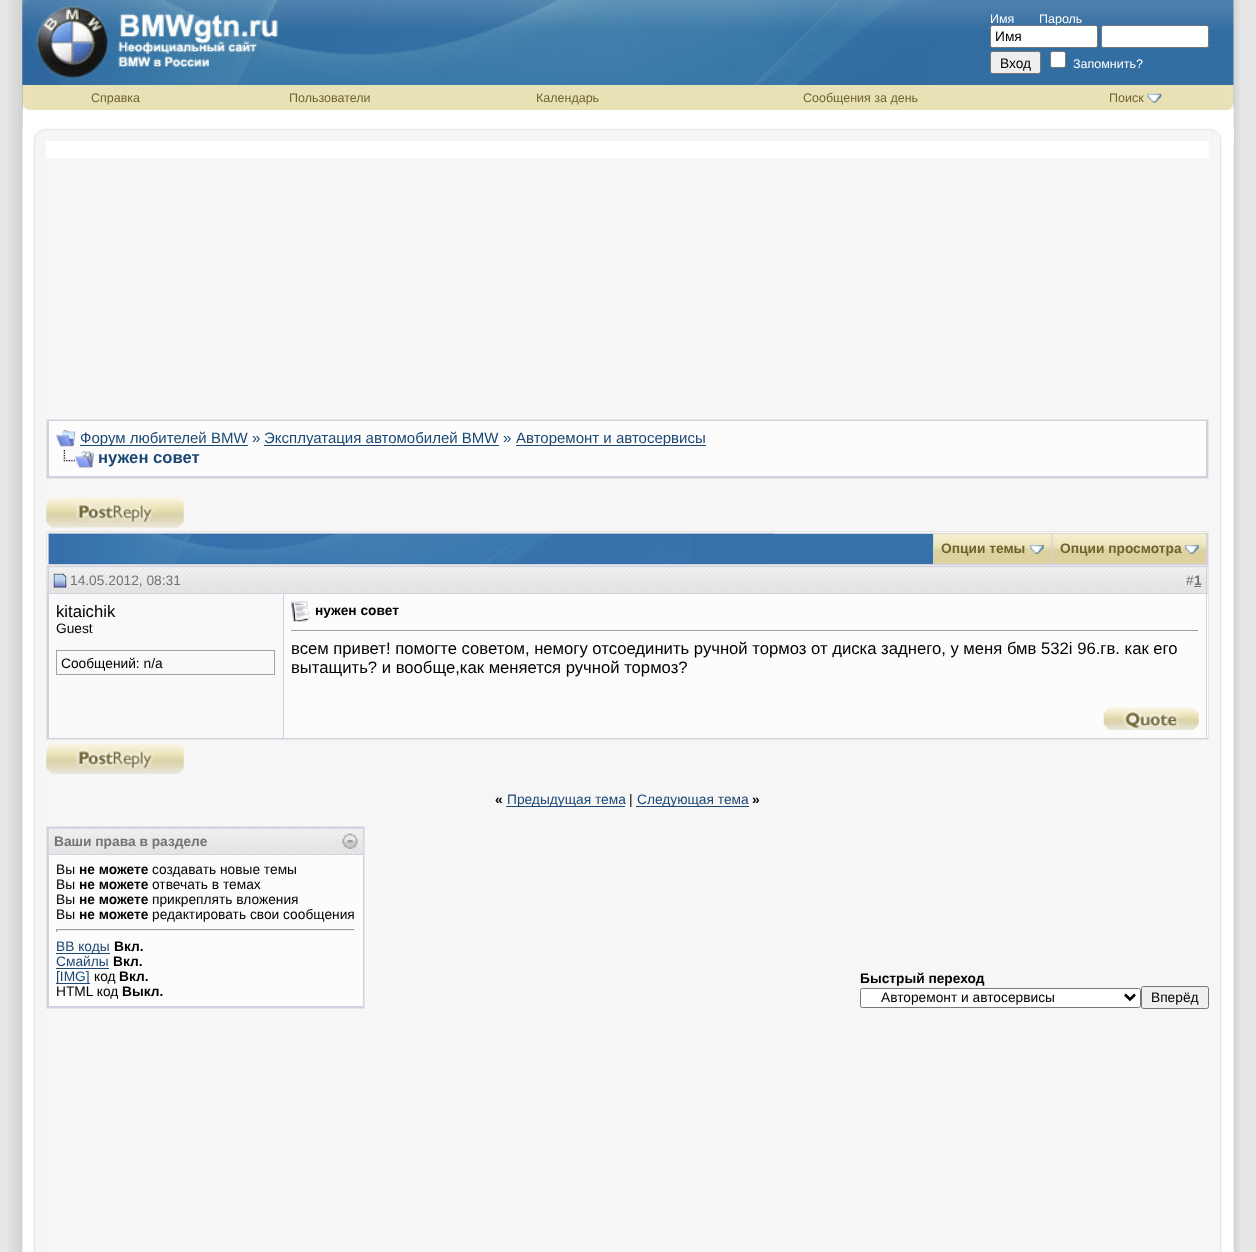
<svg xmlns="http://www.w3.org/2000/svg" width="1256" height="1252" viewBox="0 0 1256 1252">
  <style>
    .t1 { font: 12.5px Liberation Sans; fill: #fff; }
    .t2 { font: 13.75px Liberation Sans; fill: #000; }
    .t3 { font: 12.5px Liberation Sans; fill: #6e642f; }
    .t4 { font: 15px Liberation Sans; fill: #1c4874; }
    .t5 { font: bold 16.67px Liberation Sans; fill: #1c4874; }
    .t6 { font: bold 13.75px Liberation Sans; fill: #6e642f; }
    .t7 { font: 13.75px Liberation Sans; fill: #737373; }
    .t8 { font: bold 13.75px Liberation Sans; fill: #737373; }
    .t9 { font: 16.67px Liberation Sans; fill: #000; }
    .t10 { font: bold 13.75px Liberation Sans; fill: #000; }
    .t11 { font: 13.75px Liberation Sans; fill: #1c4874; }
  </style>
  <rect width="100%" height="100%" fill="#e7e7e7"/>
  <image x="8" y="0" width="15" height="1252" href="images/1.png"/>
  <rect x="23" y="0" width="1211" height="1252" fill="#fff"/>
  <image x="22" y="0" width="1212" height="110" href="images/2.png"/>
  <image x="282" y="0" width="650" height="85" href="images/4.png"/>
  <image x="22" y="0" width="261" height="85" href="images/3.png"/>
  <text x="990" y="23" class="t1">Имя</text>
  <text x="1039" y="23" class="t1">Пароль</text>
  <rect x="990.5" y="25.5" width="107" height="22" rx="2" fill="#fff" stroke="#767676"/>
  <text x="995" y="41" class="t2">Имя</text>
  <rect x="1101.5" y="25.5" width="107" height="22" rx="2" fill="#fff" stroke="#767676"/>
  <rect x="990.5" y="51.5" width="50" height="22" rx="2" fill="#efefef" stroke="#767676"/>
  <text x="1000" y="68" class="t2">Вход</text>
  <rect x="1050.5" y="51.5" width="15" height="16" rx="2" fill="#fff" stroke="#767676"/>
  <text x="1073" y="68" class="t1">Запомнить?</text>
  <image x="22" y="85" width="13" height="25" href="images/5.png"/>
  <rect x="35" y="85" width="1185" height="25" fill="#e9e1b6"/>
  <text x="91" y="102" class="t3">Справка</text>
  <text x="289" y="102" class="t3">Пользователи</text>
  <text x="536" y="102" class="t3">Календарь</text>
  <text x="803" y="102" class="t3">Сообщения за день</text>
  <text x="1109" y="102" class="t3">Поиск</text>
  <image x="1147" y="93" width="15" height="10" href="images/6.png"/>
  <image x="1233" y="0" width="7" height="1252" href="images/28.png"/>
  <image x="1220" y="85" width="14" height="25" href="images/7.png"/>
  <image x="22" y="128" width="24" height="13" href="images/8.png"/>
  <image x="46" y="128" width="1163" height="13" href="images/9.png"/>
  <image x="1209" y="128" width="25" height="13" href="images/10.png"/>
  <image x="22" y="141" width="24" height="1111" href="images/11.png"/>
  <rect x="46" y="158" width="1163" height="407" fill="#f6f6f6"/>
  <rect x="46.5" y="419.5" width="1162" height="59" fill="#d1d1e1" stroke="#e5e5e5"/>
  <rect x="49" y="421" width="1157" height="55" fill="#fcfcfc"/>
  <image x="56" y="429" width="19" height="18" href="images/12.png"/>
  <rect x="80" y="445" width="168" height="1" fill="#1c4874"/>
  <text x="80" y="443" class="t4">Форум любителей BMW</text>
  <text x="252" y="443" class="t4">»</text>
  <rect x="264" y="445" width="235" height="1" fill="#1c4874"/>
  <text x="264" y="443" class="t4">Эксплуатация автомобилей BMW</text>
  <text x="503" y="443" class="t4">»</text>
  <rect x="516" y="445" width="190" height="1" fill="#1c4874"/>
  <text x="516" y="443" class="t4">Авторемонт и автосервисы</text>
  <image x="63" y="450" width="31" height="18" href="images/13.png"/>
  <text x="98" y="463" class="t5">нужен совет</text>
  <image x="46" y="497" width="138" height="31" href="images/14.png"/>
  <rect x="48" y="533" width="1160" height="32" fill="#d1d1e1"/>
  <rect x="46" y="531" width="1163" height="1" fill="#e5e5e5"/>
  <rect x="1208" y="531" width="1" height="34" fill="#e5e5e5"/>
  <rect x="46" y="531" width="1" height="34" fill="#e5e5e5"/>
  <rect x="49" y="534" width="884" height="30" fill="#3671a9"/>
  <image x="48" y="533" width="726" height="31" href="images/15.png"/>
  <image x="933" y="533" width="119" height="31" href="images/16.png"/>
  <text x="941" y="553" class="t6">Опции темы</text>
  <image x="1030" y="545" width="14" height="9" href="images/17.png"/>
  <image x="1052" y="533" width="155" height="31" href="images/18.png"/>
  <text x="1060" y="553" class="t6">Опции просмотра</text>
  <image x="1185" y="545" width="14" height="9" href="images/17.png"/>
  <rect x="46" y="740" width="1163" height="512" fill="#f6f6f6"/>
  <rect x="47" y="566" width="1" height="173" fill="#d1d1e1"/>
  <rect x="46.5" y="565.5" width="1162" height="174" fill="none" stroke="#e5e5e5"/>
  <rect x="49" y="567" width="1159" height="26" fill="#e6e6e6"/>
  <image x="47" y="567" width="237" height="27" href="images/19.png"/>
  <rect x="48" y="566" width="1160" height="1" fill="#d1d1e1"/>
  <rect x="48" y="593" width="236" height="1" fill="#d1d1e1"/>
  <rect x="48" y="566" width="1" height="134" fill="#d1d1e1"/>
  <image x="53" y="573" width="14" height="15" href="images/20.png"/>
  <text x="70" y="585" class="t7">14.05.2012, 08:31</text>
  <image x="284" y="567" width="924" height="26" href="images/21.png"/>
  <rect x="1206" y="566" width="1" height="28" fill="#d1d1e1"/>
  <rect x="284" y="593" width="924" height="1" fill="#d1d1e1"/>
  <text x="1186" y="585" class="t7">#</text>
  <text x="1194" y="585" class="t8">1</text>
  <rect x="1194" y="586" width="7" height="1" fill="#737373"/>
  <rect x="49" y="594" width="234" height="144" fill="#f9f9f9"/>
  <rect x="283" y="594" width="1" height="145" fill="#d1d1e1"/>
  <text x="56" y="617" class="t9">kitaichik</text>
  <text x="56" y="633" class="t2">Guest</text>
  <rect x="56.5" y="650.5" width="218" height="24" fill="none" stroke="#a2a2a2"/>
  <text x="61" y="668" class="t2">Сообщений: n/a</text>
  <rect x="284" y="594" width="924" height="144" fill="#fcfcfc"/>
  <rect x="1206" y="594" width="1" height="145" fill="#d1d1e1"/>
  <image x="291" y="601" width="19" height="21" href="images/22.png"/>
  <text x="315" y="615" class="t10">нужен совет</text>
  <rect x="291" y="630" width="908" height="1" fill="#9f9f9f"/>
  <rect x="1198" y="630" width="1" height="1" fill="#eee"/>
  <text x="291" y="654" class="t9">всем привет! помогте советом, немогу отсоединить ручной тормоз от диска заднего, у меня бмв 532i 96.гв. как его</text>
  <text x="291" y="673" class="t9">вытащить? и вообще,как меняется ручной тормоз?</text>
  <rect x="48" y="738" width="1160" height="1" fill="#d1d1e1"/>
  <rect x="48" y="700" width="1" height="39" fill="#d1d1e1"/>
  <image x="1103" y="707" width="96" height="23" href="images/23.png"/>
  <image x="46" y="743" width="138" height="31" href="images/24.png"/>
  <text x="495" y="804" class="t10">«</text>
  <rect x="506" y="806" width="119" height="1" fill="#1c4874"/>
  <text x="507" y="804" class="t11">Предыдущая тема</text>
  <text x="629" y="804" class="t2">|</text>
  <rect x="636" y="806" width="113" height="1" fill="#1c4874"/>
  <text x="637" y="804" class="t11">Следующая тема</text>
  <text x="752" y="804" class="t10">»</text>
  <rect x="46.5" y="826.5" width="318" height="182" fill="#d1d1e1" stroke="#e5e5e5"/>
  <rect x="49" y="829" width="314" height="25" fill="#e6e6e6"/>
  <image x="48" y="828" width="315" height="26" href="images/25.png"/>
  <text x="54" y="846" class="t8">Ваши права в разделе</text>
  <image x="342" y="833" width="16" height="16" href="images/26.png"/>
  <rect x="49" y="855" width="314" height="151" fill="#fcfcfc"/>
  <text x="56" y="874" class="t2">Вы</text>
  <text x="79" y="874" class="t10">не можете</text>
  <text x="152" y="874" class="t2">создавать новые темы</text>
  <text x="56" y="889" class="t2">Вы</text>
  <text x="79" y="889" class="t10">не можете</text>
  <text x="152" y="889" class="t2">отвечать в темах</text>
  <text x="56" y="904" class="t2">Вы</text>
  <text x="79" y="904" class="t10">не можете</text>
  <text x="152" y="904" class="t2">прикреплять вложения</text>
  <text x="56" y="919" class="t2">Вы</text>
  <text x="79" y="919" class="t10">не можете</text>
  <text x="152" y="919" class="t2">редактировать свои сообщения</text>
  <rect x="56" y="929" width="299" height="1" fill="#9f9f9f"/>
  <rect x="354" y="929" width="1" height="3" fill="#eee"/>
  <rect x="56" y="930" width="299" height="1" fill="#eee"/>
  <rect x="56" y="929" width="1" height="3" fill="#9f9f9f"/>
  <rect x="56" y="953" width="54" height="1" fill="#1c4874"/>
  <text x="56" y="951" class="t11">BB коды</text>
  <text x="114" y="951" class="t10">Вкл.</text>
  <text x="56" y="966" class="t11">Смайлы</text>
  <rect x="56" y="968" width="53" height="1" fill="#1c4874"/>
  <text x="113" y="966" class="t10">Вкл.</text>
  <rect x="56" y="983" width="34" height="1" fill="#1c4874"/>
  <text x="56" y="981" class="t11">[IMG]</text>
  <text x="94" y="981" class="t2">код</text>
  <text x="119" y="981" class="t10">Вкл.</text>
  <text x="56" y="996" class="t2">HTML код</text>
  <text x="122" y="996" class="t10">Выкл.</text>
  <text x="860" y="983" class="t10">Быстрый переход</text>
  <rect x="860.5" y="988.5" width="280" height="19" rx="2" fill="#fff" stroke="#767676"/>
  <path d="M1125 994.5L1130 999.5L1135 994.5" fill="none" stroke="#000" stroke-width="2.5"/>
  <text x="881" y="1002" class="t2">Авторемонт и автосервисы</text>
  <image x="1208" y="141" width="14" height="1111" href="images/27.png"/>
  <rect x="1141.5" y="986.5" width="67" height="22" rx="2" fill="#efefef" stroke="#767676"/>
  <text x="1151" y="1002" class="t2">Вперёд</text>
</svg>
